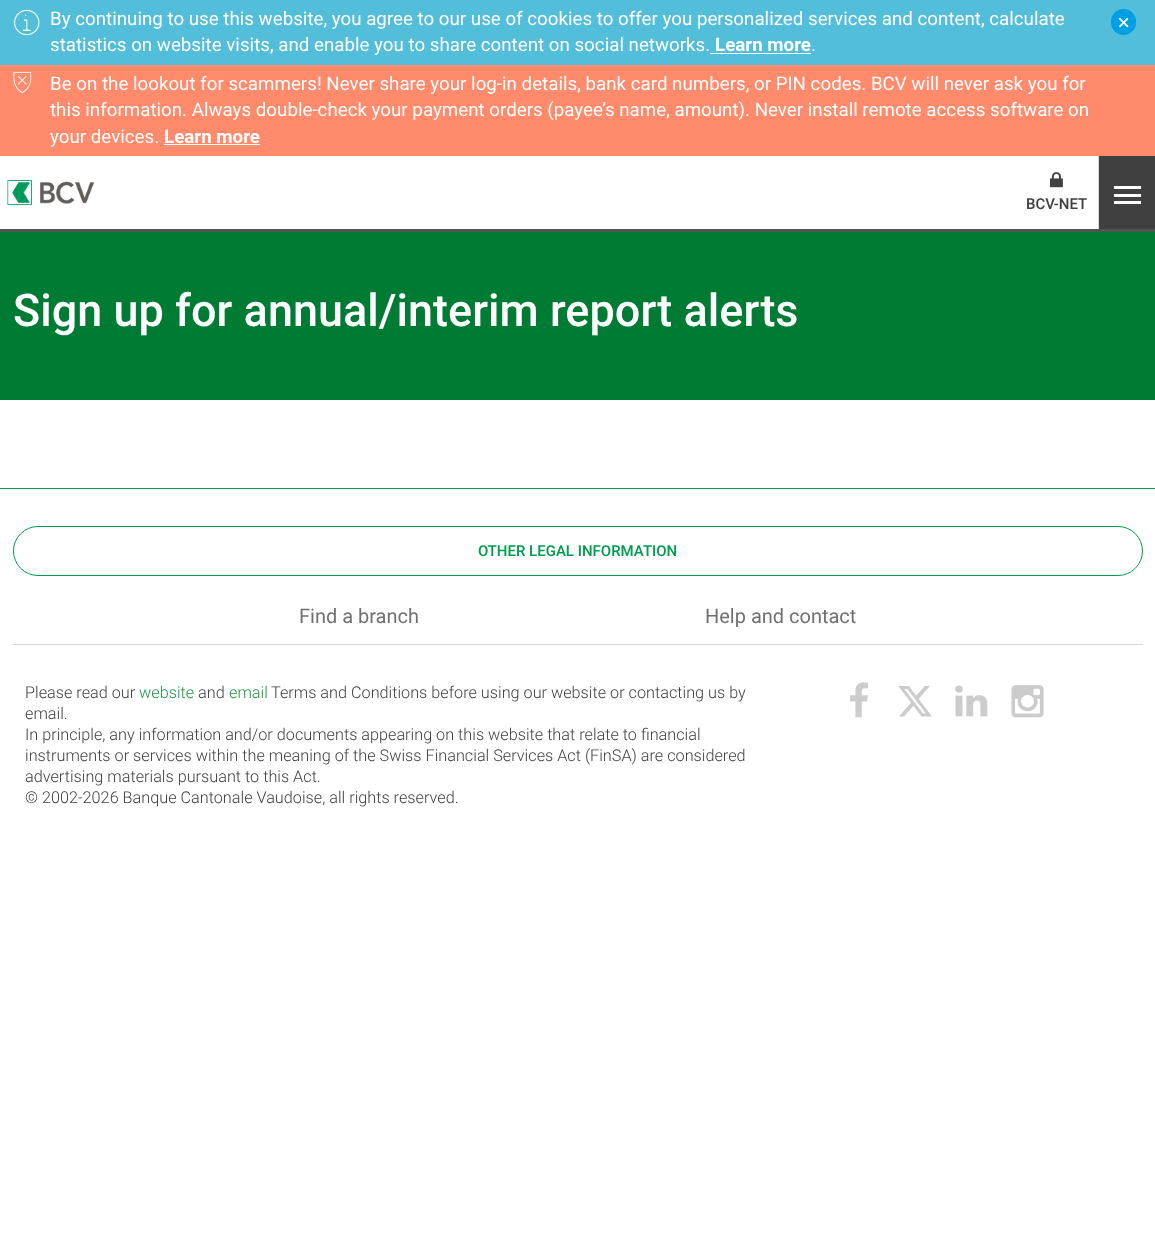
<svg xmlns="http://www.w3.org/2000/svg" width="1155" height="1257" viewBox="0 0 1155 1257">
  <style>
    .t1 { font: 18.75px Roboto; fill: #fff; }
    .t2 { font: bold 18.75px Roboto; fill: #fff; }
    .t3 { font: 500 15px Roboto; fill: #404040; }
    .t4 { font: 500 45px Roboto; fill: #fff; }
    .t5 { font: 500 15px Roboto; fill: #009d4d; }
    .t6 { font: 20px Roboto; fill: #707070; }
    .t7 { font: 300 16.25px Roboto; fill: #404040; }
    .t8 { font: 300 16.25px Roboto; fill: #1f9743; }
  </style>
  <rect width="100%" height="100%" fill="#fff"/>
  <rect x="0" y="0" width="1155" height="65" fill="#53bed9"/>
  <image x="14" y="9" width="26" height="27" href="images/1.png"/>
  <text x="50" y="25" class="t1">By continuing to use this website, you agree to our use of cookies to offer you personalized services and content, calculate</text>
  <text x="50" y="51" class="t1">statistics on website visits, and enable you to share content on social networks.</text>
  <text x="715" y="51" class="t2">Learn more</text>
  <rect x="710" y="53" width="101" height="1" fill="#fff"/>
  <text x="811" y="51" class="t1">.</text>
  <rect x="1111" y="9" width="25" height="26" rx="12.5" fill="#009fe3"/>
  <image x="1118" y="17" width="11" height="11" href="images/2.png"/>
  <rect x="0" y="65" width="1155" height="91" fill="#ff8b6c"/>
  <image x="13" y="72" width="19" height="21" href="images/3.png"/>
  <text x="50" y="90" class="t1">Be on the lookout for scammers! Never share your log-in details, bank card numbers, or PIN codes. BCV will never ask you for</text>
  <text x="50" y="116" class="t1">this information. Always double-check your payment orders (payee’s name, amount). Never install remote access software on</text>
  <text x="50" y="143" class="t1">your devices.</text>
  <text x="164" y="143" class="t2">Learn more</text>
  <rect x="164" y="144" width="96" height="1" fill="#fff"/>
  <rect x="0" y="229" width="1155" height="3" fill="#535353"/>
  <image x="7" y="180" width="88" height="25" href="images/4.png"/>
  <rect x="1098" y="156" width="1" height="73" fill="#d9d9d9"/>
  <image x="1050" y="172" width="13" height="16" href="images/5.png"/>
  <text x="1026" y="209" class="t3">BCV-NET</text>
  <rect x="1099" y="156" width="56" height="73" fill="#404040"/>
  <rect x="1114" y="186" width="27" height="3" fill="#fff"/>
  <rect x="1114" y="194" width="27" height="3" fill="#fff"/>
  <rect x="1114" y="201" width="27" height="3" fill="#fff"/>
  <rect x="0" y="232" width="1155" height="168" fill="#007b33"/>
  <text x="13" y="326" class="t4">Sign up for annual/interim report alerts</text>
  <rect x="0" y="488" width="1155" height="1" fill="#009d4d"/>
  <rect x="13.5" y="526.5" width="1129" height="49" rx="24.5" fill="none" stroke="#009d4d"/>
  <text x="478" y="556" class="t5">OTHER LEGAL INFORMATION</text>
  <rect x="13" y="644" width="1130" height="1" fill="#d9d9d9"/>
  <text x="299" y="623" class="t6">Find a branch</text>
  <text x="705" y="623" class="t6">Help and contact</text>
  <text x="25" y="698" class="t7">Please read our</text>
  <text x="139" y="698" class="t8">website</text>
  <text x="198" y="698" class="t7">and</text>
  <text x="229" y="698" class="t8">email</text>
  <text x="271" y="698" class="t7">Terms and Conditions before using our website or contacting us by</text>
  <text x="25" y="719" class="t7">email.</text>
  <text x="25" y="740" class="t7">In principle, any information and/or documents appearing on this website that relate to financial</text>
  <text x="25" y="761" class="t7">instruments or services within the meaning of the Swiss Financial Services Act (FinSA) are considered</text>
  <text x="25" y="782" class="t7">advertising materials pursuant to this Act.</text>
  <text x="25" y="803" class="t7">© 2002-2026 Banque Cantonale Vaudoise, all rights reserved.</text>
  <image x="850" y="682" width="19" height="36" href="images/6.png"/>
  <image x="898" y="686" width="34" height="31" href="images/7.png"/>
  <image x="955" y="685" width="33" height="32" href="images/8.png"/>
  <image x="1011" y="685" width="33" height="33" href="images/9.png"/>
</svg>
